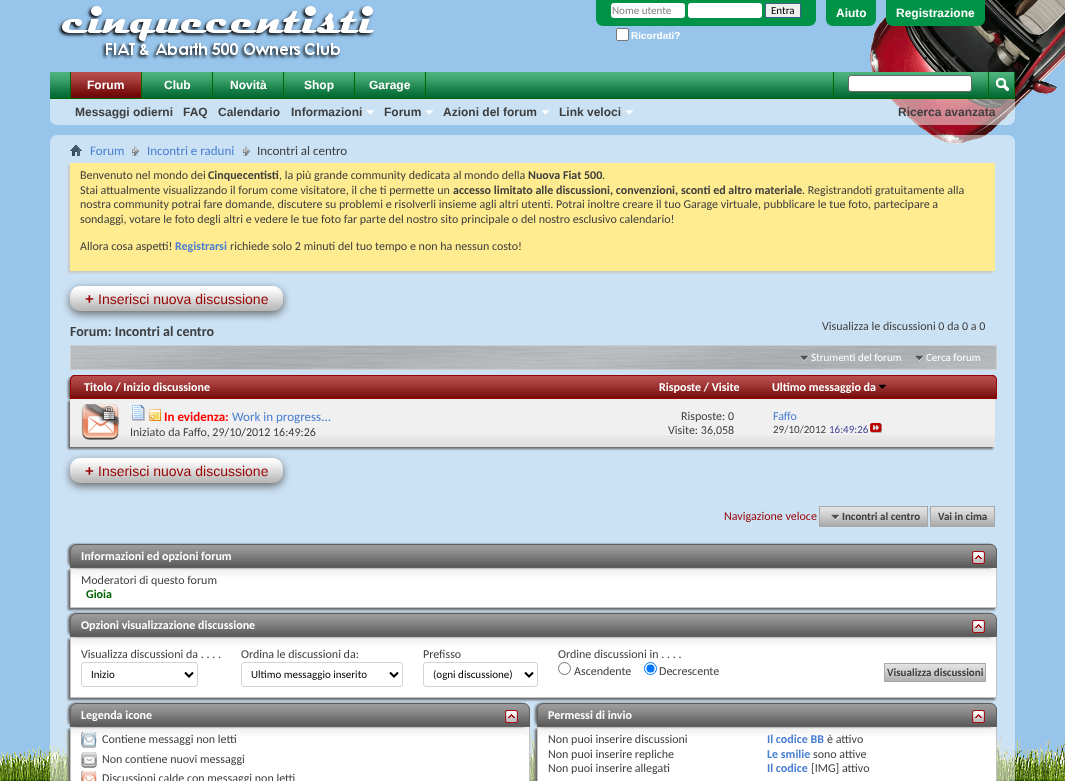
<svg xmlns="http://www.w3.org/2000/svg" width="1065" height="781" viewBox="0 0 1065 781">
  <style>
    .t1 { font: 11px Carlito; fill: #828282; }
    .t2 { font: 11px Carlito; fill: #000; }
    .t3 { font: bold 10px Liberation Sans; fill: #fff; }
    .t4 { font: bold 12px Liberation Sans; fill: #fff; }
    .t5 { font: bold 12px Liberation Sans; fill: #3e3e3e; }
    .t6 { font: 13px Carlito; fill: #497ed1; }
    .t7 { font: 13px Carlito; fill: #3e3e3e; }
    .t8 { font: 12px Carlito; fill: #3e3e3e; }
    .t9 { font: bold 12px Carlito; fill: #3e3e3e; }
    .t10 { font: bold 12px Carlito; fill: #497ed1; }
    .t11 { font: bold 15px Liberation Sans; fill: #900; }
    .t12 { font: 14px Liberation Sans; fill: #900; }
    .t13 { font: bold 14px Carlito; fill: #3e3e3e; }
    .t14 { font: 11px Carlito; fill: #fff; }
    .t15 { font: bold 12px Carlito; fill: #fff; }
    .t16 { font: bold 13px Carlito; fill: #f00; }
    .t17 { font: 12px Carlito; fill: #497ed1; }
    .t18 { font: 11px Carlito; fill: #3e3e3e; }
    .t19 { font: 11px Carlito; fill: #464699; }
    .t20 { font: 12px Carlito; fill: #900; }
    .t21 { font: bold 11px Carlito; fill: #3e3e3e; }
    .t22 { font: bold 12px Carlito; fill: #006400; }
  </style>
  <rect width="100%" height="100%" fill="#97c4ea"/>
  <image x="870" y="0" width="195" height="144" href="images/1.png"/>
  <image x="57" y="5" width="317" height="55" href="images/2.png"/>
  <path d="M596 0H816V19C816 23 813 26 809 26H603C599 26 596 23 596 19Z" fill="#009246"/>
  <rect x="611" y="3" width="74" height="15" rx="3" fill="#fff"/>
  <text x="612" y="14" class="t1">Nome utente</text>
  <rect x="688" y="3" width="74" height="15" rx="3" fill="#fff"/>
  <rect x="765.5" y="3.5" width="35" height="14" fill="#efefef" stroke="#415d8d"/>
  <text x="771" y="14" class="t2">Entra</text>
  <rect x="616.5" y="28.5" width="12" height="12" rx="1.5" fill="#fff" stroke="#767676"/>
  <text x="631" y="39" class="t3">Ricordati?</text>
  <path d="M826 0H876V19C876 23 873 26 869 26H833C829 26 826 23 826 19Z" fill="#009246"/>
  <text x="836" y="17" class="t4">Aiuto</text>
  <path d="M886 0H985V19C985 23 982 26 978 26H893C889 26 886 23 886 19Z" fill="#009246"/>
  <text x="896" y="17" class="t4">Registrazione</text>
  <image x="50" y="99" width="965" height="26" href="images/3.png"/>
  <rect x="50" y="72" width="964" height="26" fill="#009246"/>
  <image x="50" y="72" width="964" height="26" href="images/4.png"/>
  <rect x="141" y="72" width="1" height="26" fill="#060"/>
  <rect x="70" y="72" width="1" height="26" fill="#060"/>
  <rect x="71" y="72" width="70" height="26" fill="#900"/>
  <image x="71" y="72" width="70" height="26" href="images/5.png"/>
  <text x="87" y="89" class="t4">Forum</text>
  <rect x="50" y="98" width="965" height="1" fill="#060"/>
  <text x="75" y="116" class="t5">Messaggi odierni</text>
  <text x="183" y="116" class="t5">FAQ</text>
  <text x="218" y="116" class="t5">Calendario</text>
  <text x="291" y="116" class="t5">Informazioni</text>
  <image x="366" y="109" width="8" height="6" href="images/6.png"/>
  <text x="384" y="116" class="t5">Forum</text>
  <image x="425" y="109" width="8" height="6" href="images/6.png"/>
  <text x="443" y="116" class="t5">Azioni del forum</text>
  <image x="541" y="109" width="8" height="6" href="images/6.png"/>
  <text x="559" y="116" class="t5">Link veloci</text>
  <image x="625" y="109" width="8" height="6" href="images/6.png"/>
  <rect x="212" y="72" width="1" height="26" fill="#060"/>
  <rect x="142" y="72" width="70" height="26" fill="#009246"/>
  <image x="142" y="72" width="70" height="26" href="images/7.png"/>
  <text x="164" y="89" class="t4">Club</text>
  <rect x="283" y="72" width="1" height="26" fill="#060"/>
  <rect x="213" y="72" width="70" height="26" fill="#009246"/>
  <image x="213" y="72" width="70" height="26" href="images/7.png"/>
  <text x="230" y="89" class="t4">Novità</text>
  <rect x="354" y="72" width="1" height="26" fill="#060"/>
  <rect x="284" y="72" width="70" height="26" fill="#009246"/>
  <image x="284" y="72" width="70" height="26" href="images/7.png"/>
  <text x="304" y="89" class="t4">Shop</text>
  <rect x="425" y="72" width="1" height="26" fill="#060"/>
  <rect x="355" y="72" width="70" height="26" fill="#009246"/>
  <image x="355" y="72" width="70" height="26" href="images/7.png"/>
  <text x="369" y="89" class="t4">Garage</text>
  <rect x="833" y="72" width="1" height="26" fill="#060"/>
  <rect x="848.5" y="75.5" width="123" height="16" rx="2.5" fill="#fff" stroke="#666"/>
  <rect x="1014" y="72" width="1" height="26" fill="#060"/>
  <rect x="988" y="72" width="1" height="26" fill="#060"/>
  <image x="996" y="78" width="13" height="14" href="images/8.png"/>
  <text x="898" y="116" class="t5">Ricerca avanzata</text>
  <image x="0" y="734" width="1065" height="47" href="images/36.png"/>
  <image x="50" y="135" width="965" height="646" href="images/9.png"/>
  <image x="70" y="145" width="12" height="11" href="images/10.png"/>
  <image x="132" y="146" width="7" height="10" href="images/11.png"/>
  <text x="90" y="155" class="t6">Forum</text>
  <image x="243" y="146" width="7" height="10" href="images/11.png"/>
  <text x="147" y="155" class="t6">Incontri e raduni</text>
  <text x="257" y="155" class="t7">Incontri al centro</text>
  <rect x="68" y="165" width="925" height="108" fill="#c8c8c8" filter="blur(1px)"/>
  <rect x="70" y="163" width="925" height="108" fill="#ffeb90"/>
  <text x="80" y="179" class="t8">Benvenuto nel mondo dei</text>
  <text x="208" y="179" class="t9">Cinquecentisti</text>
  <text x="279" y="179" class="t8">, la più grande community dedicata al mondo della</text>
  <text x="528" y="179" class="t9">Nuova Fiat 500</text>
  <text x="602" y="179" class="t8">.</text>
  <text x="80" y="194" class="t8">Stai attualmente visualizzando il forum come visitatore, il che ti permette un</text>
  <text x="453" y="194" class="t9">accesso limitato alle discussioni, convenzioni, sconti ed altro materiale</text>
  <text x="802" y="194" class="t8">. Registrandoti gratuitamente alla</text>
  <text x="80" y="208" class="t8">nostra community potrai fare domande, discutere su problemi e risolverli insieme agli altri utenti. Potrai inoltre creare il tuo Garage virtuale, pubblicare le tue foto, partecipare a</text>
  <text x="80" y="223" class="t8">sondaggi, votare le foto degli altri e vedere le tue foto far parte del nostro sito principale o del nostro esclusivo calendario!</text>
  <text x="80" y="250" class="t8">Allora cosa aspetti!</text>
  <text x="175" y="250" class="t10">Registrarsi</text>
  <text x="230" y="250" class="t8">richiede solo 2 minuti del tuo tempo e non ha nessun costo!</text>
  <rect x="70" y="289" width="213" height="25" rx="10" fill="#666" filter="blur(4px)"/>
  <rect x="70" y="286" width="213" height="25" rx="10" fill="#fff"/>
  <image x="70" y="288" width="213" height="23" href="images/12.png"/>
  <text x="85" y="304" class="t11">+</text>
  <text x="98" y="304" class="t12">Inserisci nuova discussione</text>
  <text x="822" y="330" class="t8">Visualizza le discussioni 0 da 0 a 0</text>
  <text x="70" y="336" class="t13">Forum: Incontri al centro</text>
  <image x="71" y="346" width="925" height="23" href="images/13.png"/>
  <rect x="70.5" y="345.5" width="926" height="24" fill="none" stroke="#cecece"/>
  <image x="800" y="355" width="9" height="6" href="images/14.png"/>
  <text x="811" y="361" class="t14">Strumenti del forum</text>
  <image x="915" y="355" width="9" height="6" href="images/15.png"/>
  <text x="926" y="361" class="t14">Cerca forum</text>
  <rect x="68" y="377" width="927" height="24" rx="5" fill="#666" filter="blur(1px)"/>
  <path d="M75 375H992C995 375 997 377 997 380V399H70V380C70 377 72 375 75 375Z" fill="#900"/>
  <image x="70" y="376" width="927" height="22" href="images/16.png"/>
  <path d="M75 375.5H992C994.5 375.5 996.5 377.5 996.5 380V398.5H70.5V380C70.5 377.5 72.5 375.5 75 375.5Z" fill="none" stroke="#900"/>
  <text x="84" y="391" class="t15">Titolo / Inizio discussione</text>
  <text x="659" y="391" class="t15">Risposte / Visite</text>
  <text x="772" y="391" class="t15">Ultimo messaggio da</text>
  <image x="878" y="384" width="9" height="5" href="images/17.png"/>
  <rect x="68" y="401" width="925" height="48" fill="#666" filter="blur(1px)"/>
  <rect x="70" y="399" width="925" height="48" fill="#f0f0f0"/>
  <image x="70" y="435" width="925" height="12" href="images/18.png"/>
  <image x="81" y="404" width="39" height="36" href="images/19.png"/>
  <image x="132" y="405" width="13" height="16" href="images/20.png"/>
  <image x="149" y="409" width="12" height="12" href="images/21.png"/>
  <text x="164" y="421" class="t16">In evidenza:</text>
  <text x="232" y="421" class="t6">Work in progress...</text>
  <text x="130" y="436" class="t8">Iniziato da Faffo, 29/10/2012 16:49:26</text>
  <rect x="644" y="435" width="111" height="12" fill="#f0f0f0"/>
  <image x="644" y="435" width="111" height="12" href="images/22.png"/>
  <text x="681" y="420" class="t8">Risposte: 0</text>
  <text x="668" y="434" class="t8">Visite: 36,058</text>
  <text x="773" y="420" class="t17">Faffo</text>
  <text x="773" y="433" class="t18">29/10/2012</text>
  <text x="829" y="433" class="t19">16:49:26</text>
  <image x="870" y="423" width="12" height="10" href="images/23.png"/>
  <rect x="70" y="461" width="213" height="25" rx="10" fill="#666" filter="blur(4px)"/>
  <rect x="70" y="458" width="213" height="25" rx="10" fill="#fff"/>
  <image x="70" y="460" width="213" height="23" href="images/12.png"/>
  <text x="85" y="476" class="t11">+</text>
  <text x="98" y="476" class="t12">Inserisci nuova discussione</text>
  <text x="724" y="520" class="t20">Navigazione veloce</text>
  <rect x="820" y="507" width="107" height="19" fill="#d4d4d4"/>
  <image x="820" y="507" width="107" height="19" href="images/24.png"/>
  <rect x="931" y="507" width="63" height="19" fill="#d4d4d4"/>
  <image x="931" y="507" width="63" height="19" href="images/25.png"/>
  <rect x="819.5" y="506.5" width="108" height="20" fill="none" stroke="#a8a8a8"/>
  <image x="831" y="514" width="9" height="6" href="images/26.png"/>
  <text x="842" y="520" class="t21">Incontri al centro</text>
  <rect x="930.5" y="506.5" width="64" height="20" fill="none" stroke="#a8a8a8"/>
  <text x="938" y="520" class="t21">Vai in cima</text>
  <rect x="68" y="570" width="927" height="40" fill="#666" filter="blur(1px)"/>
  <rect x="71" y="568" width="925" height="39" fill="#fff"/>
  <image x="71" y="568" width="925" height="9" href="images/29.png"/>
  <rect x="996" y="568" width="1" height="40" fill="#c4c4c4"/>
  <rect x="70" y="607" width="927" height="1" fill="#c4c4c4"/>
  <rect x="70" y="568" width="1" height="40" fill="#c4c4c4"/>
  <rect x="68" y="544" width="927" height="24" rx="7" fill="#666" filter="blur(1px)"/>
  <path d="M77 544H990C994 544 997 547 997 551V568H70V551C70 547 73 544 77 544Z" fill="#707070"/>
  <image x="70" y="545" width="927" height="22" href="images/27.png"/>
  <path d="M77 544.5H990C993.5 544.5 996.5 547.5 996.5 551V567.5H70.5V551C70.5 547.5 73.5 544.5 77 544.5Z" fill="none" stroke="#606060"/>
  <text x="81" y="560" class="t15">Informazioni ed opzioni forum</text>
  <image x="972" y="551" width="13" height="13" href="images/28.png"/>
  <text x="81" y="584" class="t8">Moderatori di questo forum</text>
  <text x="86" y="598" class="t22">Gioia</text>
  <rect x="68" y="639" width="927" height="61" fill="#666" filter="blur(1px)"/>
  <rect x="71" y="637" width="925" height="60" fill="#fff"/>
  <image x="71" y="637" width="925" height="9" href="images/29.png"/>
  <rect x="996" y="637" width="1" height="61" fill="#c4c4c4"/>
  <rect x="70" y="697" width="927" height="1" fill="#c4c4c4"/>
  <rect x="70" y="637" width="1" height="61" fill="#c4c4c4"/>
  <rect x="68" y="613" width="927" height="24" rx="7" fill="#666" filter="blur(1px)"/>
  <path d="M77 613H990C994 613 997 616 997 620V637H70V620C70 616 73 613 77 613Z" fill="#707070"/>
  <image x="70" y="614" width="927" height="22" href="images/27.png"/>
  <path d="M77 613.5H990C993.5 613.5 996.5 616.5 996.5 620V636.5H70.5V620C70.5 616.5 73.5 613.5 77 613.5Z" fill="none" stroke="#606060"/>
  <text x="81" y="629" class="t15">Opzioni visualizzazione discussione</text>
  <image x="972" y="620" width="13" height="13" href="images/28.png"/>
  <text x="81" y="658" class="t8">Visualizza discussioni da . . . .</text>
  <rect x="81.5" y="662.5" width="116" height="24" rx="2.5" fill="none" stroke="#d4d4d4"/>
  <path d="M185 672.5L189 676.5L193 672.5" fill="none" stroke="#000" stroke-width="2"/>
  <text x="91" y="678" class="t2">Inizio</text>
  <text x="241" y="658" class="t8">Ordina le discussioni da:</text>
  <rect x="241.5" y="662.5" width="161" height="24" rx="2.5" fill="none" stroke="#d4d4d4"/>
  <path d="M390 672.5L394 676.5L398 672.5" fill="none" stroke="#000" stroke-width="2"/>
  <text x="251" y="678" class="t2">Ultimo messaggio inserito</text>
  <text x="423" y="658" class="t8">Prefisso</text>
  <rect x="423.5" y="662.5" width="114" height="24" rx="2.5" fill="none" stroke="#d4d4d4"/>
  <path d="M525 672.5L529 676.5L533 672.5" fill="none" stroke="#000" stroke-width="2"/>
  <text x="433" y="678" class="t2">(ogni discussione)</text>
  <text x="558" y="658" class="t8">Ordine discussioni in . . . .</text>
  <circle cx="564.5" cy="668.5" r="6" fill="none" stroke="#767676"/>
  <text x="574" y="675" class="t8">Ascendente</text>
  <circle cx="650.5" cy="668.5" r="6" fill="none" stroke="#0075ff"/>
  <circle cx="650.5" cy="668.5" r="4" fill="#0075ff"/>
  <text x="659" y="675" class="t8">Decrescente</text>
  <rect x="885" y="664" width="100" height="17" fill="#d4d4d4"/>
  <image x="885" y="664" width="100" height="17" href="images/30.png"/>
  <rect x="884.5" y="663.5" width="101" height="18" fill="none" stroke="#a8a8a8"/>
  <text x="887" y="676" class="t21">Visualizza discussioni</text>
  <rect x="68" y="729" width="460" height="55" fill="#666" filter="blur(1px)"/>
  <rect x="71" y="727" width="458" height="54" fill="#fff"/>
  <image x="71" y="727" width="458" height="9" href="images/32.png"/>
  <rect x="529" y="727" width="1" height="54" fill="#c4c4c4"/>
  <rect x="70" y="727" width="1" height="54" fill="#c4c4c4"/>
  <rect x="68" y="703" width="460" height="24" rx="7" fill="#666" filter="blur(1px)"/>
  <path d="M77 703H523C527 703 530 706 530 710V727H70V710C70 706 73 703 77 703Z" fill="#707070"/>
  <image x="70" y="704" width="460" height="22" href="images/31.png"/>
  <path d="M77 703.5H523C526.5 703.5 529.5 706.5 529.5 710V726.5H70.5V710C70.5 706.5 73.5 703.5 77 703.5Z" fill="none" stroke="#606060"/>
  <text x="81" y="719" class="t15">Legenda icone</text>
  <image x="505" y="710" width="13" height="13" href="images/28.png"/>
  <image x="81" y="732" width="16" height="16" href="images/33.png"/>
  <text x="102" y="743" class="t8">Contiene messaggi non letti</text>
  <image x="81" y="752" width="16" height="16" href="images/34.png"/>
  <text x="102" y="763" class="t8">Non contiene nuovi messaggi</text>
  <image x="81" y="771" width="16" height="10" href="images/35.png"/>
  <text x="102" y="782" class="t8">Discussioni calde con messaggi non letti</text>
  <rect x="535" y="729" width="460" height="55" fill="#666" filter="blur(1px)"/>
  <rect x="538" y="727" width="458" height="54" fill="#fff"/>
  <image x="538" y="727" width="458" height="9" href="images/32.png"/>
  <rect x="996" y="727" width="1" height="54" fill="#c4c4c4"/>
  <rect x="537" y="727" width="1" height="54" fill="#c4c4c4"/>
  <rect x="535" y="703" width="460" height="24" rx="7" fill="#666" filter="blur(1px)"/>
  <path d="M544 703H990C994 703 997 706 997 710V727H537V710C537 706 540 703 544 703Z" fill="#707070"/>
  <image x="537" y="704" width="460" height="22" href="images/31.png"/>
  <path d="M544 703.5H990C993.5 703.5 996.5 706.5 996.5 710V726.5H537.5V710C537.5 706.5 540.5 703.5 544 703.5Z" fill="none" stroke="#606060"/>
  <text x="548" y="719" class="t15">Permessi di invio</text>
  <image x="972" y="710" width="13" height="13" href="images/28.png"/>
  <text x="548" y="743" class="t8">Non puoi inserire discussioni</text>
  <text x="548" y="758" class="t8">Non puoi inserire repliche</text>
  <text x="548" y="772" class="t8">Non puoi inserire allegati</text>
  <text x="767" y="743" class="t10">Il codice BB</text>
  <text x="827" y="743" class="t8">è attivo</text>
  <text x="767" y="758" class="t10">Le smilie</text>
  <text x="813" y="758" class="t8">sono attive</text>
  <text x="767" y="772" class="t10">Il codice</text>
  <text x="811" y="772" class="t8">[IMG] attivo</text>
</svg>
